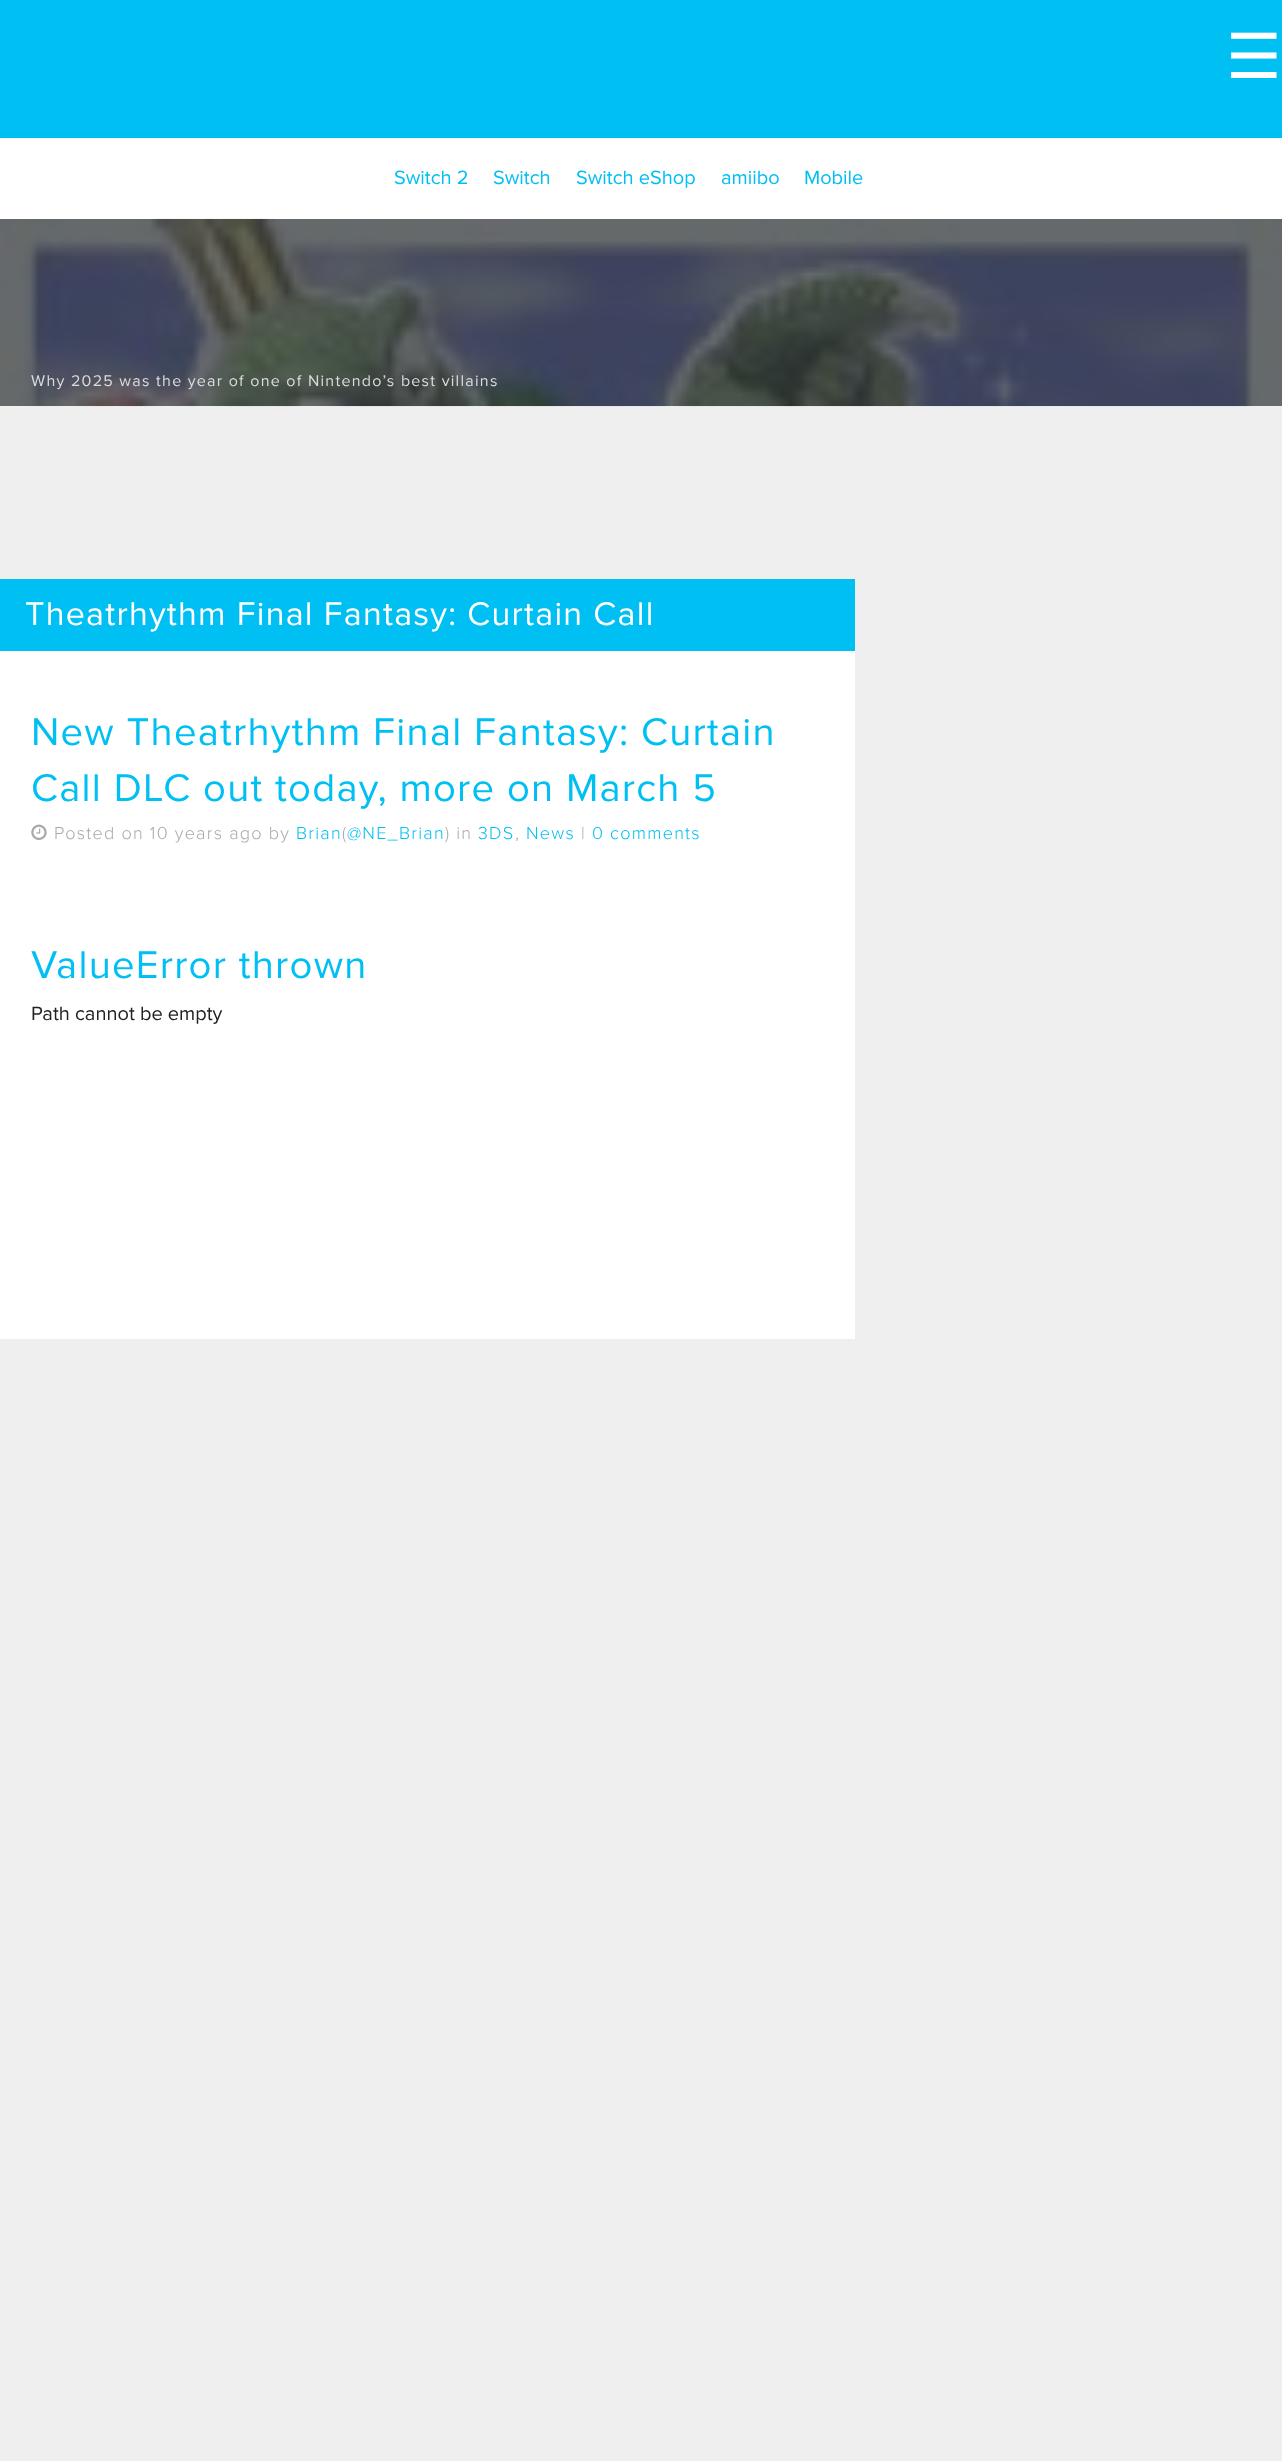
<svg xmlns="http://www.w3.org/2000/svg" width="1282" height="2461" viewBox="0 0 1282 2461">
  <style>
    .t1 { font: 62px DejaVu Sans; fill: #fff; }
    .t2 { font: 20px Proxima Nova; fill: #00bff3; }
    .t3 { font: 16px Proxima Nova; letter-spacing: 1.25px; fill: #dbdcdd; }
    .t4 { font: 34px Proxima Nova; letter-spacing: 1.25px; fill: #fff; }
    .t5 { font: 40px Proxima Nova; letter-spacing: 1.25px; fill: #00bff3; }
    .t6 { font: 300 18px Proxima Nova; letter-spacing: 1.25px; fill: #a9a9a9; }
    .t7 { font: 300 18px Proxima Nova; letter-spacing: 1.25px; fill: #00bff3; }
    .t8 { font: 20px Proxima Nova; fill: #222; }
  </style>
  <rect width="100%" height="100%" fill="#efefef"/>
  <rect x="0" y="0" width="1282" height="138" fill="#00bff3"/>
  <text x="1226" y="78" class="t1">☰</text>
  <rect x="0" y="138" width="1282" height="81" fill="#fff"/>
  <text x="394" y="184" class="t2">Switch 2</text>
  <text x="493" y="184" class="t2">Switch</text>
  <text x="576" y="184" class="t2">Switch eShop</text>
  <text x="721" y="184" class="t2">amiibo</text>
  <text x="804" y="184" class="t2">Mobile</text>
  <image x="0" y="218" width="1282" height="189" href="images/1.png"/>
  <text x="31" y="386" class="t3">Why 2025 was the year of one of Nintendo’s best villains</text>
  <rect x="0" y="579" width="855" height="72" fill="#00bff3"/>
  <text x="25" y="625" class="t4">Theatrhythm Final Fantasy: Curtain Call</text>
  <rect x="0" y="651" width="855" height="688" fill="#fff"/>
  <text x="31" y="745" class="t5">New Theatrhythm Final Fantasy: Curtain</text>
  <text x="31" y="801" class="t5">Call DLC out today, more on March 5</text>
  <image x="31" y="824" width="16" height="16" href="images/2.png"/>
  <text x="54" y="839" class="t6">Posted on 10 years ago by</text>
  <text x="296" y="839" class="t7">Brian</text>
  <text x="342" y="839" class="t6">(</text>
  <text x="347" y="839" class="t7">@NE_Brian</text>
  <text x="445" y="839" class="t6">) in</text>
  <text x="478" y="839" class="t7">3DS</text>
  <text x="515" y="839" class="t6">,</text>
  <text x="526" y="839" class="t7">News</text>
  <text x="581" y="839" class="t6">|</text>
  <text x="592" y="839" class="t7">0 comments</text>
  <text x="31" y="978" class="t5">ValueError thrown</text>
  <text x="31" y="1020" class="t8">Path cannot be empty</text>
</svg>
